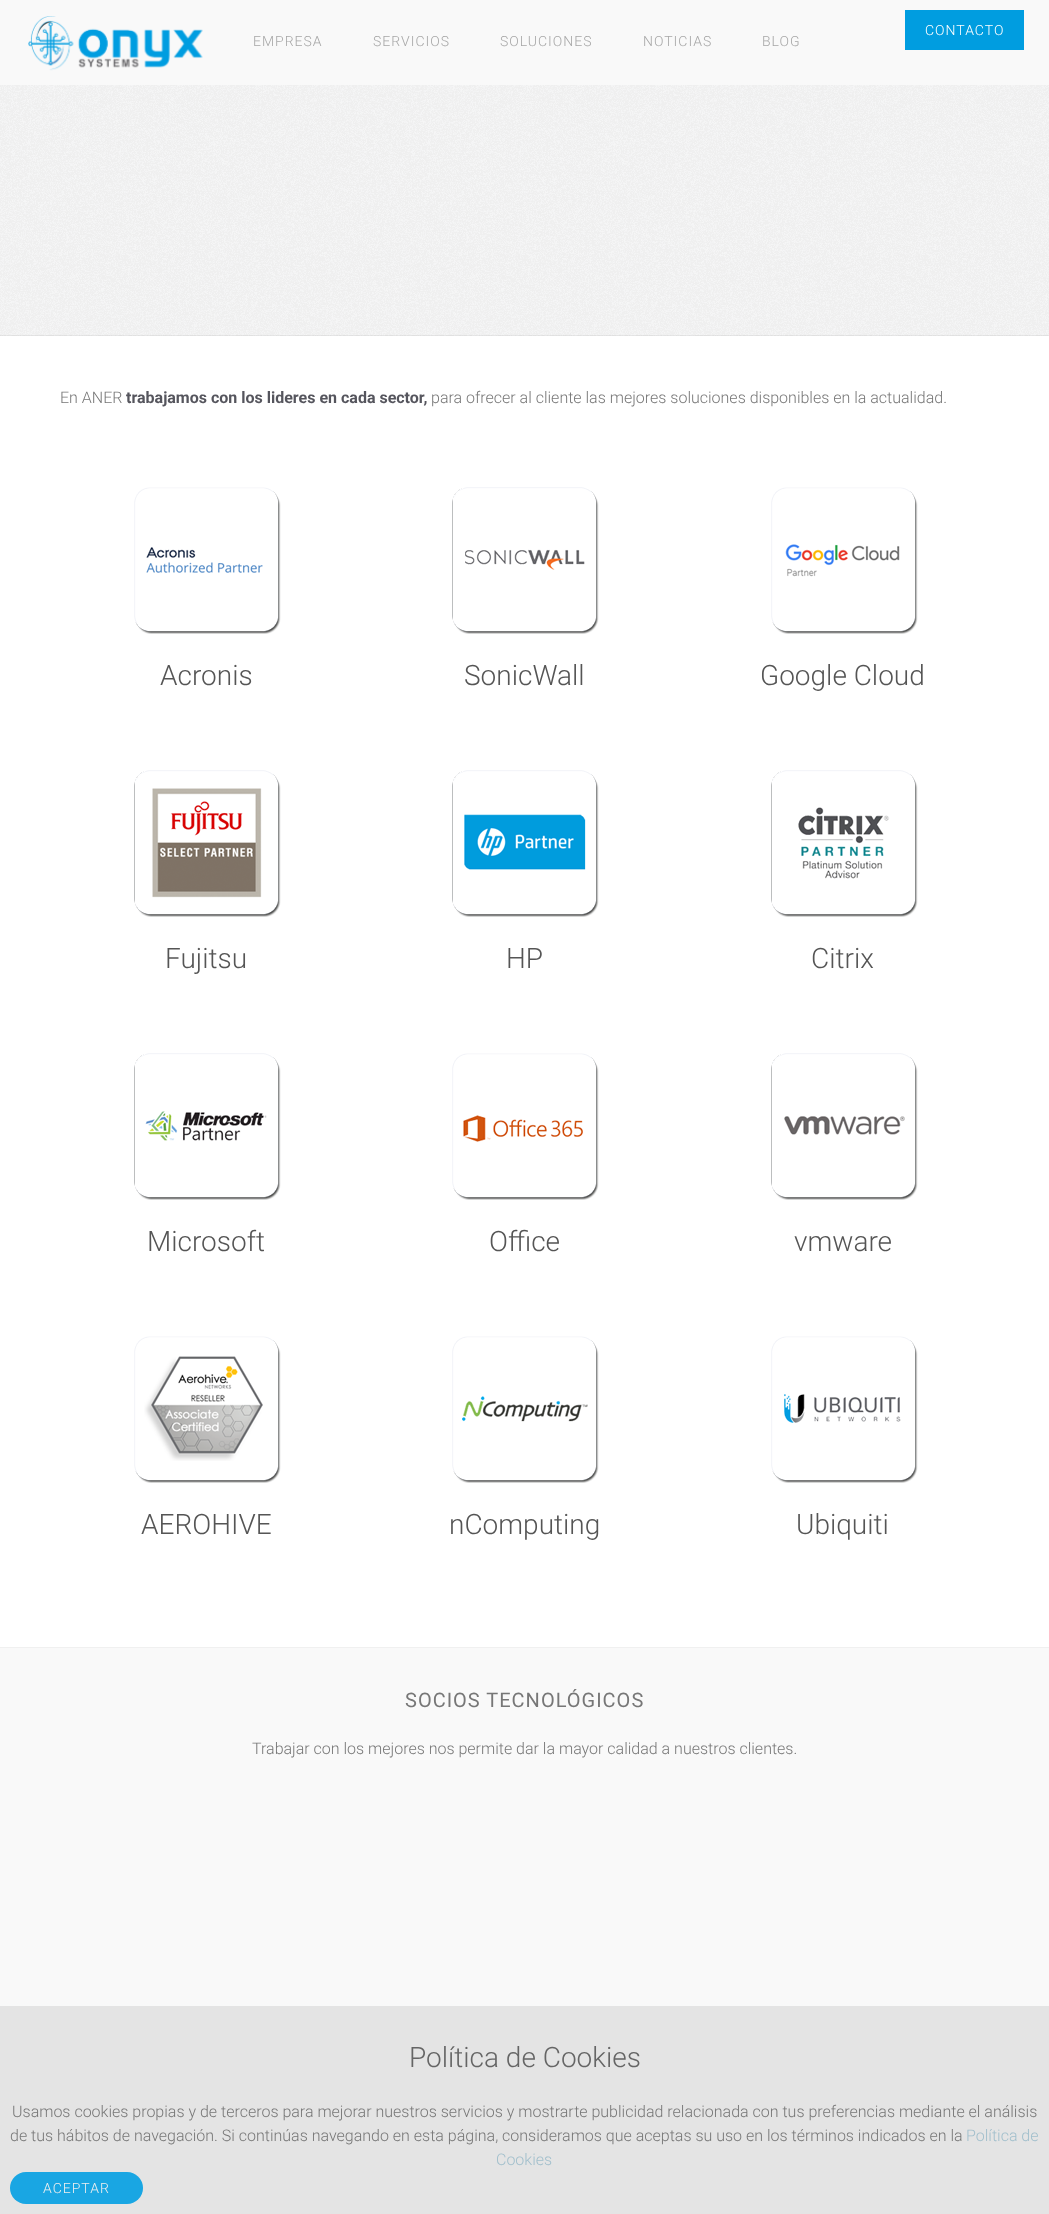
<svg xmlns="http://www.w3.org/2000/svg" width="1049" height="2214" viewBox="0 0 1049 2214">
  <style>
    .t1 { font: 300 14px Roboto; letter-spacing: 1px; fill: #fff; }
    .t2 { font: 300 14px Roboto; letter-spacing: 1px; fill: #a7a7a7; }
    .t3 { font: 300 16px Roboto; fill: #777; }
    .t4 { font: bold 16px Roboto; fill: #55555d; }
    .t5 { font: 300 28px Roboto; fill: #555; }
    .t6 { font: 20px Roboto; letter-spacing: 1px; fill: #777; }
    .t7 { font: 300 28px Roboto; fill: #656565; }
    .t8 { font: 300 16px Roboto; fill: #a1bfcc; }
    .t9 { font: 300 14px Roboto; letter-spacing: 1px; fill: #efefef; }
  </style>
  <rect width="100%" height="100%" fill="#f9f9f9"/>
  <image x="0" y="85" width="1049" height="251" href="images/1.png"/>
  <rect x="0" y="335" width="1049" height="1" fill="#0000000f"/>
  <image x="28" y="16" width="175" height="55" href="images/2.png"/>
  <rect x="905" y="10" width="119" height="40" fill="#009de0"/>
  <text x="925" y="35" class="t1">CONTACTO</text>
  <text x="253" y="46" class="t2">EMPRESA</text>
  <text x="373" y="46" class="t2">SERVICIOS</text>
  <text x="500" y="46" class="t2">SOLUCIONES</text>
  <text x="643" y="46" class="t2">NOTICIAS</text>
  <text x="762" y="46" class="t2">BLOG</text>
  <rect x="0" y="336" width="1049" height="1311" fill="#fff"/>
  <rect x="0" y="1647" width="1049" height="1" fill="#f0f0f0"/>
  <text x="60" y="403" class="t3">En ANER</text>
  <text x="126" y="403" class="t4">trabajamos con los lideres en cada sector,</text>
  <text x="431" y="403" class="t3">para ofrecer al cliente las mejores soluciones disponibles en la actualidad.</text>
  <image x="134" y="487" width="147" height="147" href="images/3.png"/>
  <text x="160" y="685" class="t5">Acronis</text>
  <image x="134" y="770" width="147" height="147" href="images/4.png"/>
  <text x="165" y="968" class="t5">Fujitsu</text>
  <image x="134" y="1053" width="147" height="147" href="images/5.png"/>
  <text x="147" y="1251" class="t5">Microsoft</text>
  <image x="134" y="1336" width="147" height="147" href="images/6.png"/>
  <text x="141" y="1534" class="t5">AEROHIVE</text>
  <image x="452" y="487" width="147" height="147" href="images/7.png"/>
  <text x="464" y="685" class="t5">SonicWall</text>
  <image x="452" y="770" width="147" height="147" href="images/8.png"/>
  <text x="506" y="968" class="t5">HP</text>
  <image x="452" y="1053" width="147" height="147" href="images/9.png"/>
  <text x="489" y="1251" class="t5">Office</text>
  <image x="452" y="1336" width="147" height="147" href="images/10.png"/>
  <text x="449" y="1534" class="t5">nComputing</text>
  <image x="771" y="487" width="147" height="147" href="images/11.png"/>
  <text x="760" y="685" class="t5">Google Cloud</text>
  <image x="771" y="770" width="147" height="147" href="images/12.png"/>
  <text x="811" y="968" class="t5">Citrix</text>
  <image x="771" y="1053" width="147" height="147" href="images/13.png"/>
  <text x="794" y="1251" class="t5">vmware</text>
  <image x="771" y="1336" width="147" height="147" href="images/14.png"/>
  <text x="796" y="1534" class="t5">Ubiquiti</text>
  <text x="405" y="1707" class="t6">SOCIOS TECNOLÓGICOS</text>
  <text x="252" y="1754" class="t3">Trabajar con los mejores nos permite dar la mayor calidad a nuestros clientes.</text>
  <rect x="0" y="2006" width="1049" height="208" fill="#e4e4e4"/>
  <text x="409" y="2067" class="t7">Política de Cookies</text>
  <text x="12" y="2117" class="t3">Usamos cookies propias y de terceros para mejorar nuestros servicios y mostrarte publicidad relacionada con tus preferencias mediante el análisis</text>
  <text x="10" y="2141" class="t3">de tus hábitos de navegación. Si continúas navegando en esta página, consideramos que aceptas su uso en los términos indicados en la</text>
  <text x="966" y="2141" class="t8">Política de</text>
  <text x="496" y="2165" class="t8">Cookies</text>
  <rect x="10" y="2172" width="133" height="32" rx="16" fill="#19a6e3"/>
  <text x="43" y="2193" class="t9">ACEPTAR</text>
</svg>
